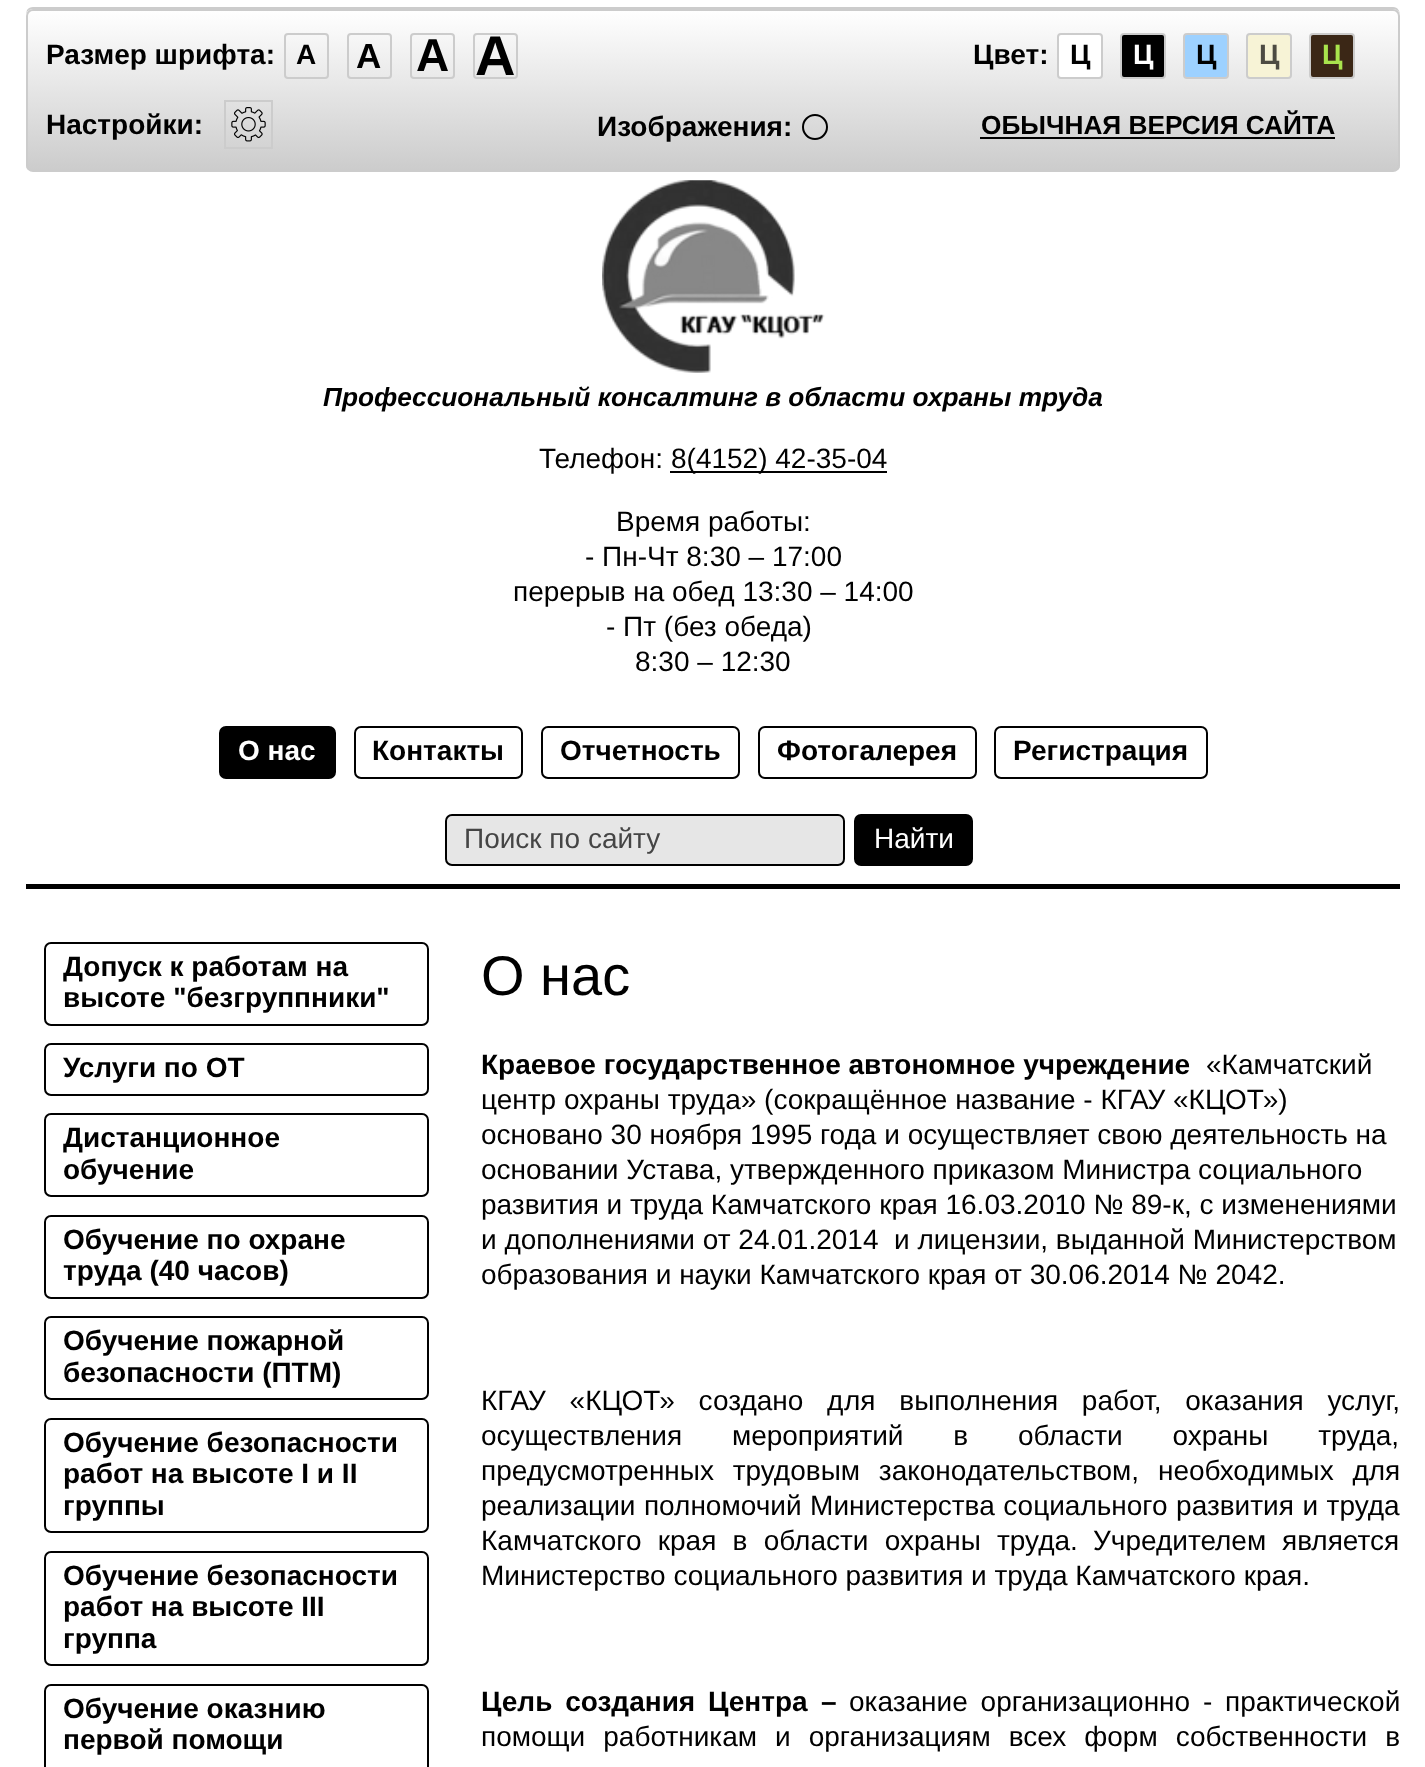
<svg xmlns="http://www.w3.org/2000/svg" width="1425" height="1767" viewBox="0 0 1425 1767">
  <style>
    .t1 { font: bold 28px Liberation Sans; fill: #000; }
    .t2 { font: bold 35px Liberation Sans; fill: #000; }
    .t3 { font: bold 46px Liberation Sans; fill: #000; }
    .t4 { font: bold 56px Liberation Sans; fill: #000; }
    .t5 { font: bold 28px Liberation Sans; fill: #fff; }
    .t6 { font: bold 28px Liberation Sans; fill: #4d4b43; }
    .t7 { font: bold 28px Liberation Sans; fill: #a9e44d; }
    .t8 { font: bold 26.25px Liberation Sans; fill: #000; }
    .t9 { font: italic bold 26.25px Liberation Sans; fill: #000; }
    .t10 { font: 28px Liberation Sans; fill: #000; }
    .t11 { font: 28px Liberation Sans; fill: #454545; }
    .t12 { font: 28px Liberation Sans; fill: #fff; }
    .t13 { font: 56px Liberation Sans; fill: #000; }
  </style>
  <defs>
    <clipPath id="clip1"><rect x="26" y="9" width="1374" height="163" rx="7"/></clipPath>
    <linearGradient id="g1" gradientUnits="userSpaceOnUse" x1="713" y1="10" x2="713" y2="170"><stop offset="0" stop-color="#fff"/><stop offset="1" stop-color="#ccc"/></linearGradient>
  </defs>
  <rect width="100%" height="100%" fill="#fff"/>
  <rect x="26" y="884" width="1374" height="5" fill="#000"/>
  <path d="M33 7C31 7 28 8 27 10L26 14V165V16C26 12 29 9 33 9H1393C1397 9 1400 12 1400 16C1400 11 1398 7 1393 7Z" fill="#ccc"/>
  <g clip-path="url(#clip1)">
    <rect x="26" y="11" width="1374" height="159" fill="url(#g1)"/>
  </g>
  <rect x="27" y="10" width="1372" height="161" rx="6" fill="none" stroke="#ccc" stroke-width="2"/>
  <text x="46" y="64" class="t1">Размер шрифта:</text>
  <rect x="285" y="34" width="43" height="44" rx="3" fill="none" stroke="#ccc" stroke-width="2"/>
  <text x="296" y="64" class="t1">A</text>
  <rect x="348" y="34" width="43" height="44" rx="3" fill="none" stroke="#ccc" stroke-width="2"/>
  <text x="356" y="68" class="t2">A</text>
  <rect x="411" y="34" width="43" height="44" rx="3" fill="none" stroke="#ccc" stroke-width="2"/>
  <text x="416" y="71" class="t3">A</text>
  <rect x="474" y="34" width="43" height="44" rx="3" fill="none" stroke="#ccc" stroke-width="2"/>
  <text x="475" y="75" class="t4">A</text>
  <text x="973" y="64" class="t1">Цвет:</text>
  <rect x="1058" y="34" width="44" height="44" rx="3" fill="#fff" stroke="#ccc" stroke-width="2"/>
  <text x="1070" y="64" class="t1">Ц</text>
  <rect x="1121" y="34" width="44" height="44" rx="3" fill="#000" stroke="#ccc" stroke-width="2"/>
  <text x="1133" y="64" class="t5">Ц</text>
  <rect x="1184" y="34" width="44" height="44" rx="3" fill="#9dd1ff" stroke="#ccc" stroke-width="2"/>
  <text x="1196" y="64" class="t1">Ц</text>
  <rect x="1247" y="34" width="44" height="44" rx="3" fill="#f7f3d6" stroke="#ccc" stroke-width="2"/>
  <text x="1259" y="64" class="t6">Ц</text>
  <rect x="1310" y="34" width="44" height="44" rx="3" fill="#3b2716" stroke="#ccc" stroke-width="2"/>
  <text x="1322" y="64" class="t7">Ц</text>
  <text x="46" y="134" class="t1">Настройки:</text>
  <rect x="225" y="101" width="47" height="47" fill="none" stroke="#ccc" stroke-width="2"/>
  <image x="231" y="107" width="35" height="35" href="images/1.png"/>
  <text x="597" y="136" class="t1">Изображения:</text>
  <circle cx="815" cy="127" r="12" fill="none" stroke="#000" stroke-width="2"/>
  <text x="981" y="134" class="t8">ОБЫЧНАЯ ВЕРСИЯ САЙТА</text>
  <rect x="980" y="137" width="355" height="2" fill="#000"/>
  <image x="602" y="180" width="223" height="193" href="images/2.png"/>
  <text x="323" y="406" class="t9">Профессиональный консалтинг в области охраны труда</text>
  <text x="539" y="468" class="t10">Телефон:</text>
  <rect x="670" y="471" width="217" height="2" fill="#000"/>
  <text x="671" y="468" class="t10">8(4152) 42-35-04</text>
  <text x="616" y="531" class="t10">Время работы:</text>
  <text x="585" y="566" class="t10">- Пн-Чт 8:30 – 17:00</text>
  <text x="513" y="601" class="t10">перерыв на обед 13:30 – 14:00</text>
  <text x="606" y="636" class="t10">- Пт (без обеда)</text>
  <text x="635" y="671" class="t10">8:30 – 12:30</text>
  <rect x="220" y="727" width="115" height="51" rx="6" fill="#000" stroke="#000" stroke-width="2"/>
  <text x="238" y="760" class="t5">О нас</text>
  <rect x="355" y="727" width="167" height="51" rx="6" fill="none" stroke="#000" stroke-width="2"/>
  <text x="372" y="760" class="t1">Контакты</text>
  <rect x="542" y="727" width="197" height="51" rx="6" fill="none" stroke="#000" stroke-width="2"/>
  <text x="560" y="760" class="t1">Отчетность</text>
  <rect x="759" y="727" width="217" height="51" rx="6" fill="none" stroke="#000" stroke-width="2"/>
  <text x="777" y="760" class="t1">Фотогалерея</text>
  <rect x="995" y="727" width="212" height="51" rx="6" fill="none" stroke="#000" stroke-width="2"/>
  <text x="1013" y="760" class="t1">Регистрация</text>
  <rect x="446" y="815" width="398" height="50" rx="6" fill="#e6e6e6" stroke="#000" stroke-width="2"/>
  <text x="464" y="848" class="t11">Поиск по сайту</text>
  <rect x="855" y="815" width="117" height="50" rx="6" fill="#000" stroke="#000" stroke-width="2"/>
  <text x="874" y="848" class="t12">Найти</text>
  <rect x="45" y="943" width="383" height="82" rx="6" fill="none" stroke="#000" stroke-width="2"/>
  <text x="63" y="976" class="t1">Допуск к работам на</text>
  <text x="63" y="1007" class="t1">высоте "безгруппники"</text>
  <rect x="45" y="1044" width="383" height="51" rx="6" fill="none" stroke="#000" stroke-width="2"/>
  <text x="63" y="1077" class="t1">Услуги по ОТ</text>
  <rect x="45" y="1114" width="383" height="82" rx="6" fill="none" stroke="#000" stroke-width="2"/>
  <text x="63" y="1147" class="t1">Дистанционное</text>
  <text x="63" y="1179" class="t1">обучение</text>
  <rect x="45" y="1216" width="383" height="82" rx="6" fill="none" stroke="#000" stroke-width="2"/>
  <text x="63" y="1249" class="t1">Обучение по охране</text>
  <text x="63" y="1280" class="t1">труда (40 часов)</text>
  <rect x="45" y="1317" width="383" height="82" rx="6" fill="none" stroke="#000" stroke-width="2"/>
  <text x="63" y="1350" class="t1">Обучение пожарной</text>
  <text x="63" y="1382" class="t1">безопасности (ПТМ)</text>
  <rect x="45" y="1419" width="383" height="113" rx="6" fill="none" stroke="#000" stroke-width="2"/>
  <text x="63" y="1452" class="t1">Обучение безопасности</text>
  <text x="63" y="1483" class="t1">работ на высоте I и II</text>
  <text x="63" y="1515" class="t1">группы</text>
  <rect x="45" y="1552" width="383" height="113" rx="6" fill="none" stroke="#000" stroke-width="2"/>
  <text x="63" y="1585" class="t1">Обучение безопасности</text>
  <text x="63" y="1616" class="t1">работ на высоте III</text>
  <text x="63" y="1648" class="t1">группа</text>
  <rect x="45" y="1685" width="383" height="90" rx="6" fill="none" stroke="#000" stroke-width="2"/>
  <text x="63" y="1718" class="t1">Обучение оказнию</text>
  <text x="63" y="1749" class="t1">первой помощи</text>
  <text x="481" y="995" class="t13">О нас</text>
  <text x="481" y="1074" class="t1">Краевое государственное автономное учреждение</text>
  <text x="1206" y="1074" class="t10">«Камчатский</text>
  <text x="481" y="1109" class="t10">центр охраны труда» (сокращённое название - КГАУ «КЦОТ»)</text>
  <text x="481" y="1144" class="t10">основано 30 ноября 1995 года и осуществляет свою деятельность на</text>
  <text x="481" y="1179" class="t10">основании Устава, утвержденного приказом Министра социального</text>
  <text x="481" y="1214" class="t10">развития и труда Камчатского края 16.03.2010 № 89-к, с изменениями</text>
  <text x="481" y="1249" class="t10">и дополнениями от 24.01.2014</text>
  <text x="894" y="1249" class="t10">и лицензии, выданной Министерством</text>
  <text x="481" y="1284" class="t10">образования и науки Камчатского края от 30.06.2014 № 2042.</text>
  <text x="481" y="1410" word-spacing="16" class="t10">КГАУ «КЦОТ» создано д</text>
  <text x="844" y="1410" word-spacing="16" class="t10">ля выполнения работ, оказания услуг,</text>
  <text x="481" y="1445" word-spacing="42" class="t10">осуществления мероприятий в области охраны труда,</text>
  <text x="481" y="1480" word-spacing="11" class="t10">предусмотренных трудовым законодательством, необходимых для</text>
  <text x="481" y="1515" word-spacing="0.75" class="t10">реализации полномочий Министерства социального развития и труда</text>
  <text x="481" y="1550" word-spacing="8.5" class="t10">Камчатского края в области охраны труда.</text>
  <text x="1093" y="1550" word-spacing="8" class="t10">Учредителем является</text>
  <text x="481" y="1585" class="t10">Министерство социального развития и труда Камчатского края.</text>
  <text x="481" y="1711" word-spacing="5" class="t1">Цель создания Центра</text>
  <text x="821" y="1711" class="t1">–</text>
  <text x="849" y="1711" word-spacing="5" class="t10">оказание организационно - практической</text>
  <text x="481" y="1746" word-spacing="10.25" class="t10">помощи работникам и организациям всех форм собственности в</text>
</svg>
